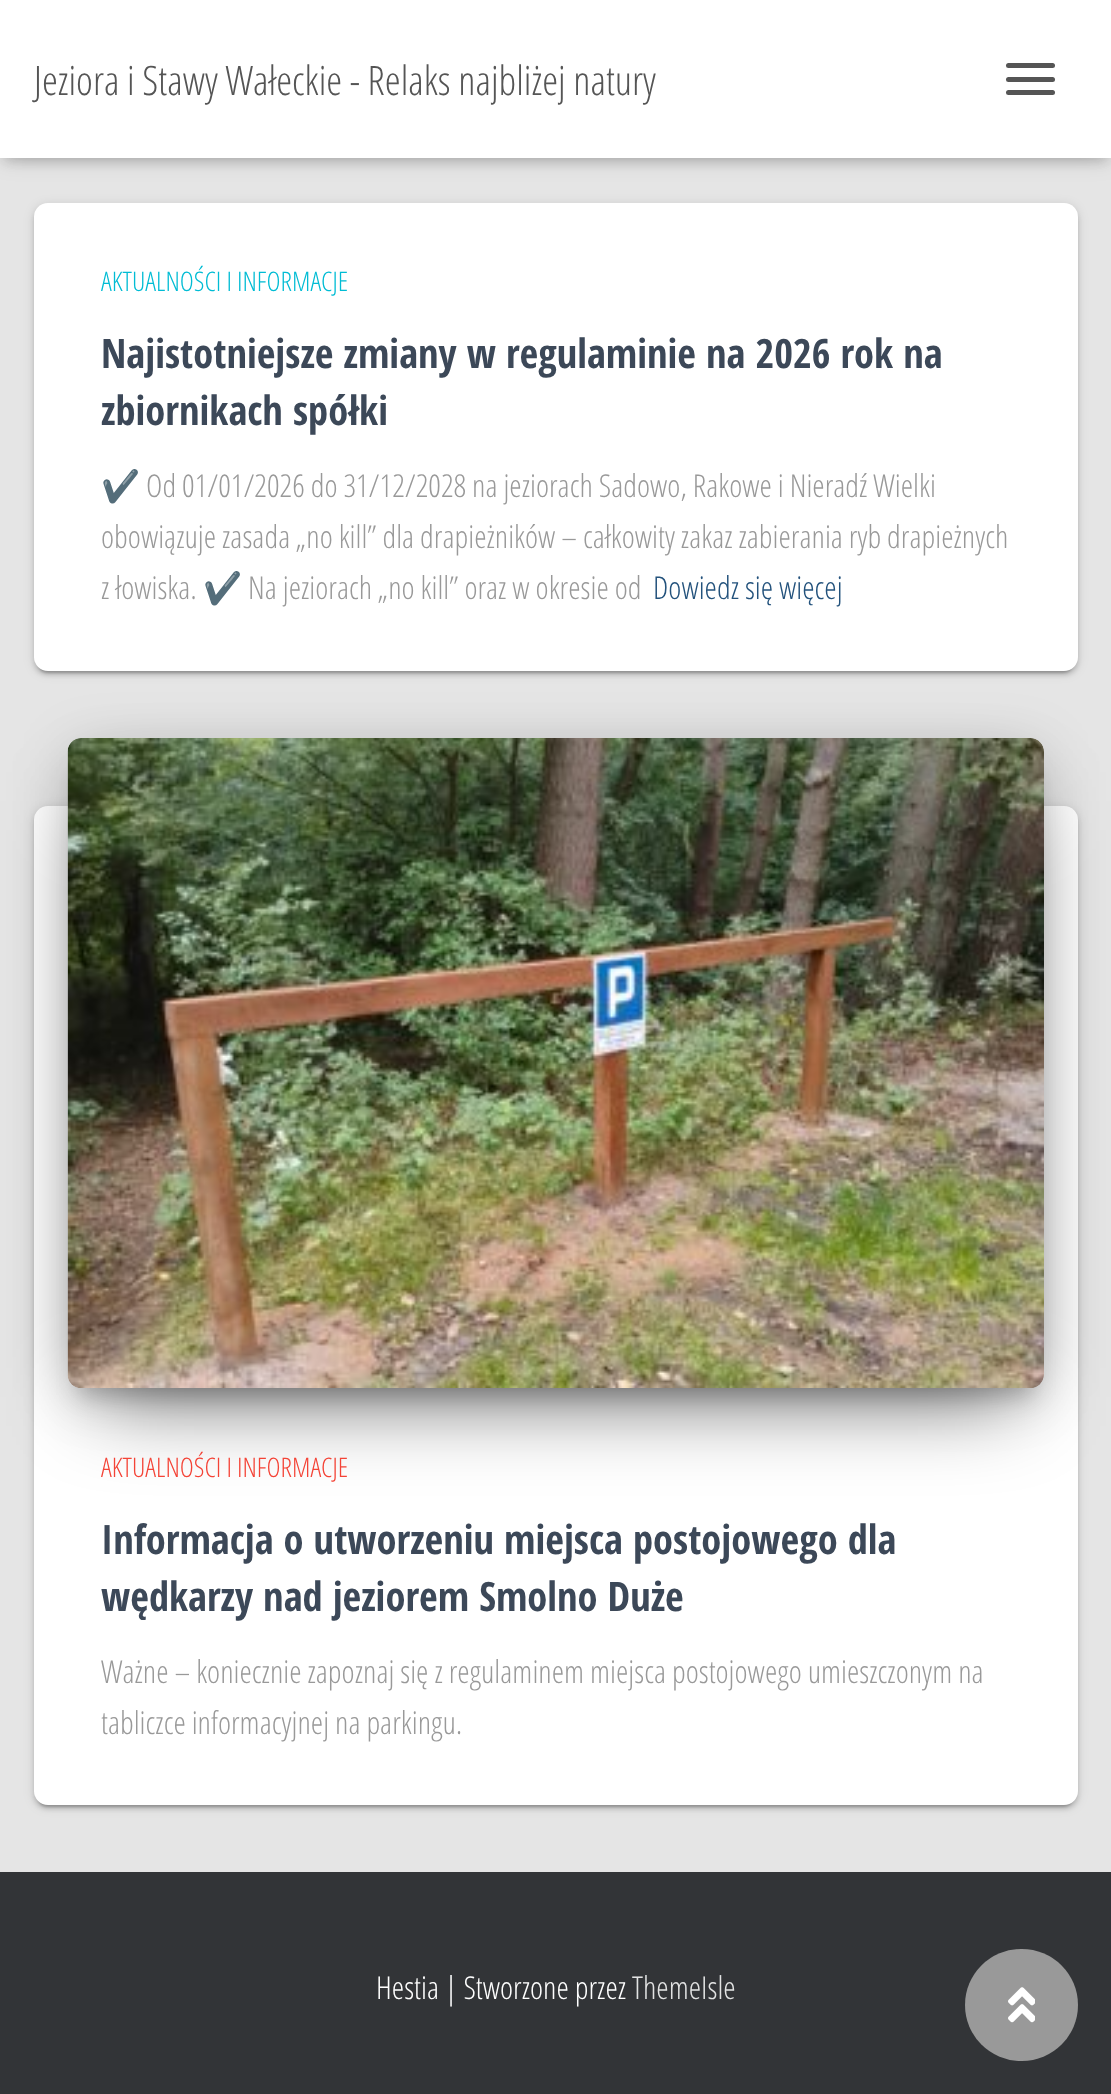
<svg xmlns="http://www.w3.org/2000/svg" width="1111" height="2094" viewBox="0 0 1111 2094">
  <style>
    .t1 { font: 300 40.5px Open Sans Condensed; fill: #555; }
    .t2 { font: 300 27px Open Sans Condensed; fill: #00bcd4; }
    .t3 { font: bold 40.5px Open Sans Condensed; fill: #3c4858; }
    .t4 { font: 31.5px Noto Color Emoji; fill: #999; }
    .t5 { font: 300 31.5px Open Sans Condensed; fill: #999; }
    .t6 { font: 300 31.5px Open Sans Condensed; fill: #23527c; }
    .t7 { font: 300 27px Open Sans Condensed; fill: #f44336; }
    .t8 { font: 300 31.5px Open Sans Condensed; fill: #fff; }
    .t9 { font: 300 31.5px Open Sans Condensed; fill: #e2e3e3; }
  </style>
  <rect width="100%" height="100%" fill="#e5e5e5"/>
  <rect x="5" y="14" width="1102" height="148" fill="#0000001a" filter="blur(5.5px)"/>
  <rect x="0" y="2" width="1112" height="158" fill="#0000001f" filter="blur(11px)"/>
  <rect x="14" y="16" width="1084" height="130" fill="#0000006b" filter="blur(11px)"/>
  <rect x="0" y="0" width="1111" height="158" fill="#fff"/>
  <text x="34" y="95" class="t1">Jeziora i Stawy Wałeckie - Relaks najbliżej natury</text>
  <rect x="1006" y="63" width="49" height="5" rx="2.5" fill="#555"/>
  <rect x="1006" y="77" width="49" height="5" rx="2.5" fill="#555"/>
  <rect x="1006" y="90" width="49" height="5" rx="2.5" fill="#555"/>
  <rect x="34" y="205" width="1044" height="468" rx="14" fill="#0000001f" filter="blur(5.5px)"/>
  <rect x="38" y="214" width="1035" height="459" rx="9" fill="#00000033" filter="blur(1px)"/>
  <rect x="34" y="207" width="1044" height="468" rx="14" fill="#00000024" filter="blur(2px)"/>
  <rect x="34" y="203" width="1044" height="468" rx="14" fill="#fff"/>
  <text x="101" y="291" class="t2">AKTUALNOŚCI I INFORMACJE</text>
  <text x="101" y="368" class="t3">Najistotniejsze zmiany w regulaminie na 2026 rok na</text>
  <text x="101" y="425" class="t3">zbiornikach spółki</text>
  <text x="101" y="497" class="t4">✔️</text>
  <text x="146" y="497" class="t5">Od 01/01/2026 do 31/12/2028 na jeziorach Sadowo, Rakowe i Nieradź Wielki</text>
  <text x="101" y="548" class="t5">obowiązuje zasada „no kill” dla drapieżników – całkowity zakaz zabierania ryb drapieżnych</text>
  <text x="101" y="599" class="t5">z łowiska.</text>
  <text x="203" y="599" class="t4">✔️</text>
  <text x="248" y="599" class="t5">Na jeziorach „no kill” oraz w okresie od</text>
  <text x="653" y="599" class="t6">Dowiedz się więcej</text>
  <rect x="34" y="808" width="1044" height="999" rx="14" fill="#0000001f" filter="blur(5.5px)"/>
  <rect x="38" y="817" width="1035" height="990" rx="9" fill="#00000033" filter="blur(1px)"/>
  <rect x="34" y="810" width="1044" height="999" rx="14" fill="#00000024" filter="blur(2px)"/>
  <rect x="34" y="806" width="1044" height="999" rx="14" fill="#fff"/>
  <rect x="79" y="767" width="954" height="628" rx="2" fill="#00000033" filter="blur(11px)"/>
  <rect x="68" y="747" width="976" height="650" rx="14" fill="#0000001f" filter="blur(28px)"/>
  <rect x="95" y="801" width="922" height="596" fill="#0000008f" filter="blur(43px)"/>
  <image x="67" y="738" width="977" height="650" href="images/1.png"/>
  <text x="101" y="1477" class="t7">AKTUALNOŚCI I INFORMACJE</text>
  <text x="101" y="1554" class="t3">Informacja o utworzeniu miejsca postojowego dla</text>
  <text x="101" y="1611" class="t3">wędkarzy nad jeziorem Smolno Duże</text>
  <text x="101" y="1683" class="t5">Ważne – koniecznie zapoznaj się z regulaminem miejsca postojowego umieszczonym na</text>
  <text x="101" y="1734" class="t5">tabliczce informacyjnej na parkingu.</text>
  <rect x="0" y="1872" width="1111" height="222" fill="#323437"/>
  <text x="376" y="1999" class="t8">Hestia | Stworzone przez</text>
  <text x="632" y="1999" class="t9">ThemeIsle</text>
  <rect x="965" y="1949" width="113" height="112" rx="56" fill="#999"/>
  <image x="1008" y="1987" width="27" height="36" href="images/2.png"/>
</svg>
